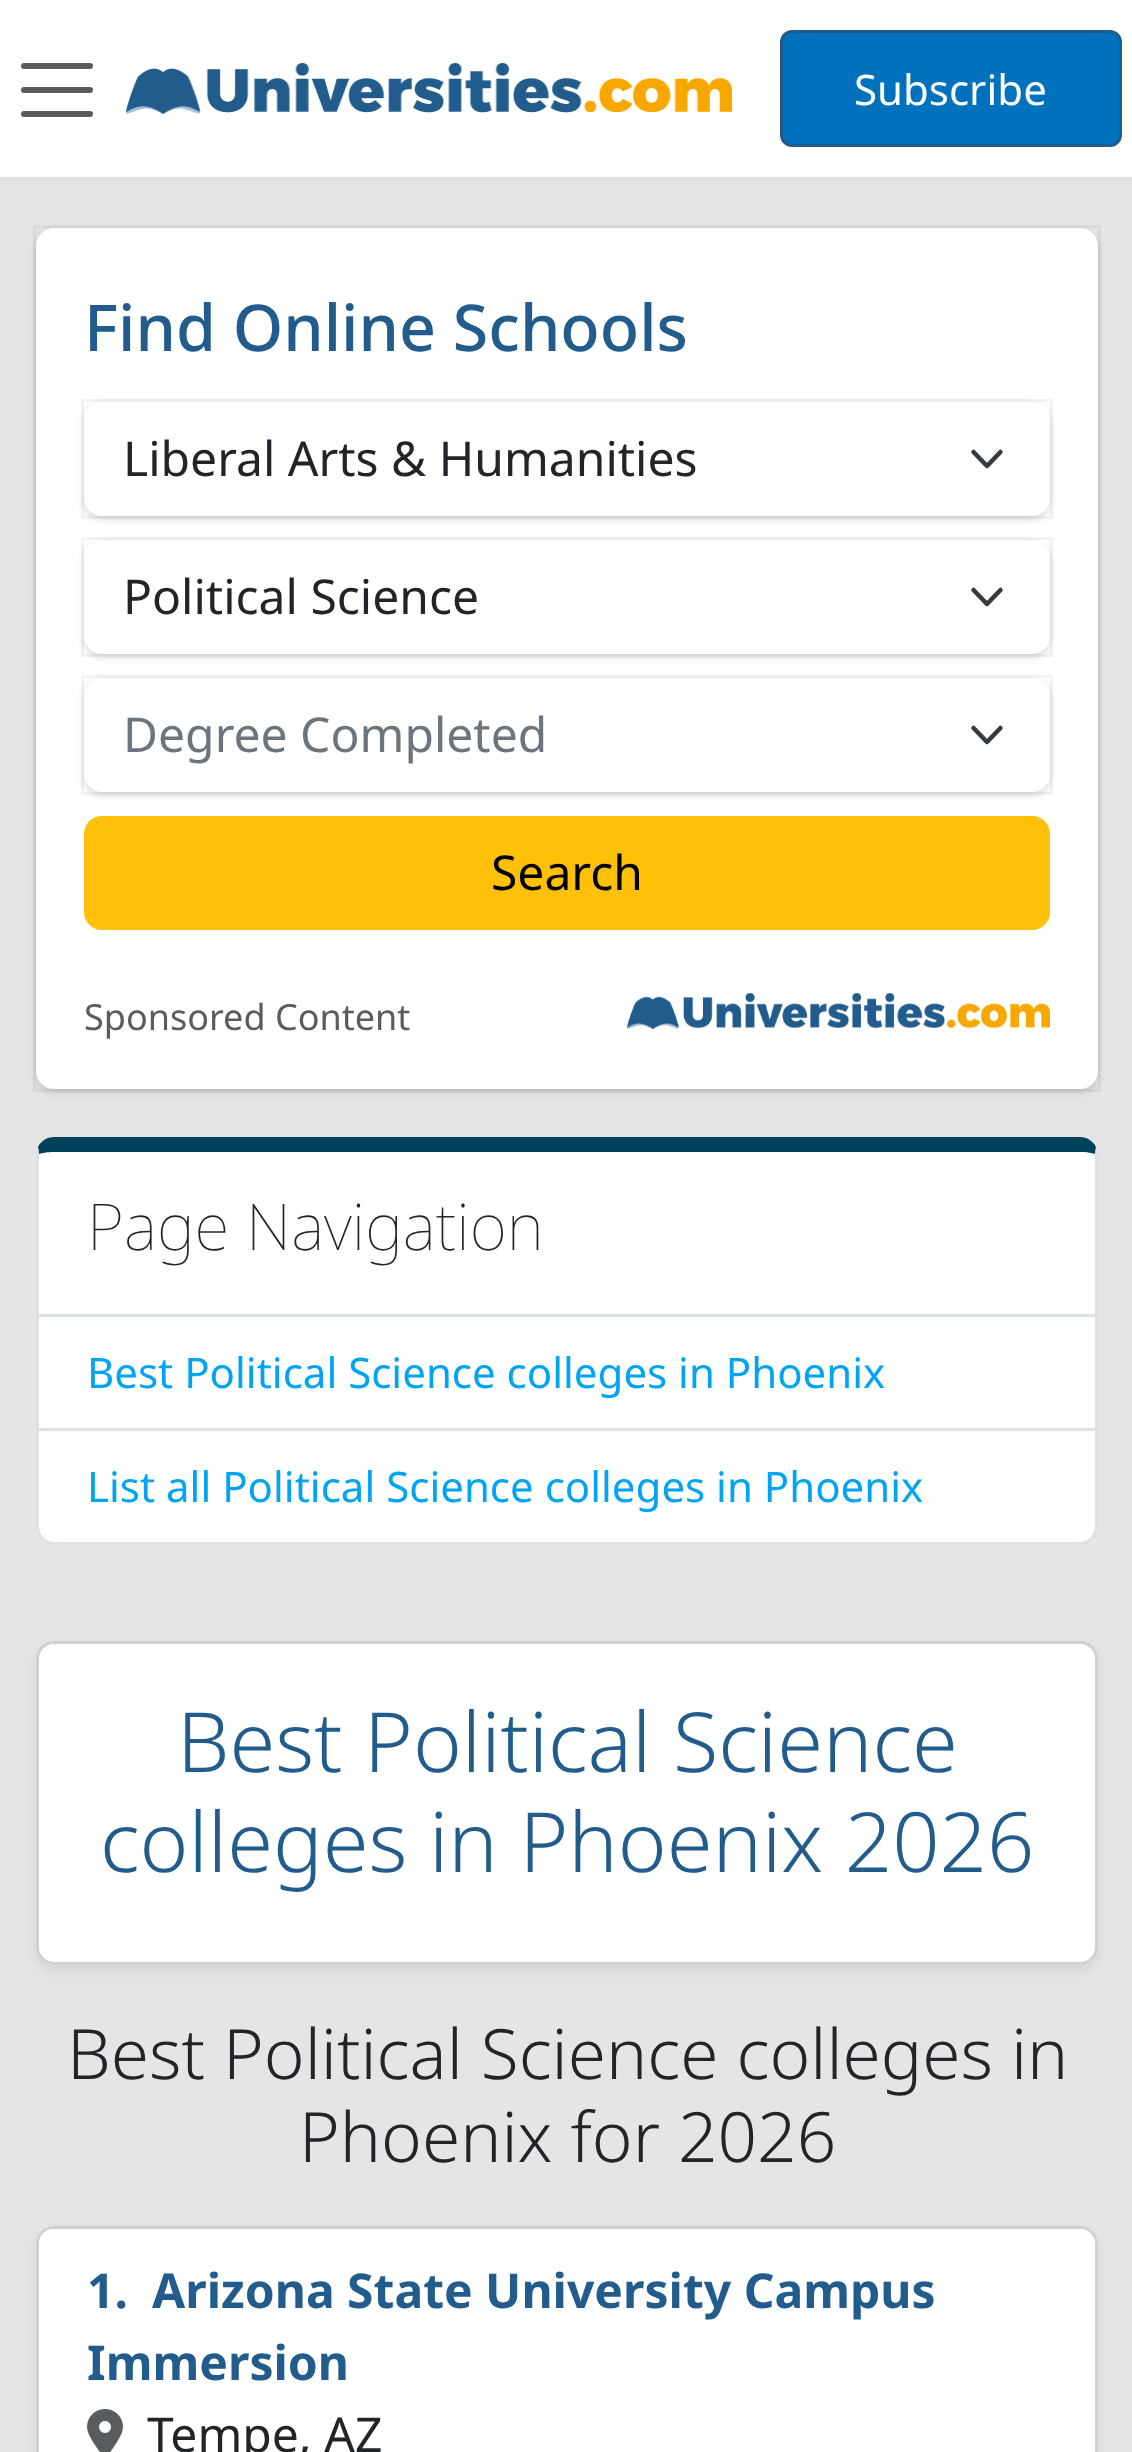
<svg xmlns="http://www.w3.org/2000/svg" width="1132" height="2452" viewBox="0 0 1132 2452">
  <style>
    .t1 { font: 42px Noto Sans; fill: #fff; }
    .t2 { font: 500 64.5px Noto Sans; fill: #225c8c; }
    .t3 { font: 48px Noto Sans; fill: #212529; }
    .t4 { font: 48px Noto Sans; fill: #6c757d; }
    .t5 { font: 48px Noto Sans; fill: #000; }
    .t6 { font: 36px Noto Sans; fill: #595c5f; }
    .t7 { font: 100 64.5px Noto Sans; fill: #212529; }
    .t8 { font: 42px Noto Sans; fill: #00a4f3; }
    .t9 { font: 300 83px Noto Sans; fill: #225c8c; }
    .t10 { font: 300 69.25px Noto Sans; fill: #212529; }
    .t11 { font: bold 48px Noto Sans; fill: #225c8c; }
  </style>
  <rect width="100%" height="100%" fill="#e5e5e5"/>
  <rect x="0" y="0" width="1132" height="177" fill="#fff"/>
  <rect x="0" y="177" width="1132" height="3" fill="#dee2e6"/>
  <path d="M24 66H90M24 90H90M24 114H90" fill="none" stroke="#595c5f" stroke-width="6" stroke-linecap="round"/>
  <image x="126" y="63" width="606" height="51" href="images/1.png"/>
  <rect x="781.5" y="31.5" width="339" height="114" rx="10.5" fill="#0071bc" stroke="#225c8c" stroke-width="3"/>
  <text x="854" y="105" class="t1">Subscribe</text>
  <rect x="36" y="231" width="1062" height="861" rx="18" fill="#0000000f" filter="blur(3px)"/>
  <rect x="36" y="231" width="1062" height="861" rx="18" fill="#0000001a" filter="blur(4.5px)"/>
  <rect x="34.5" y="226.5" width="1065" height="864" fill="none" stroke="#1118270d" stroke-width="3"/>
  <rect x="36" y="228" width="1062" height="861" rx="18" fill="#fff"/>
  <text x="84" y="351" class="t2">Find Online Schools</text>
  <rect x="84" y="405" width="966" height="114" rx="18" fill="#0000000f" filter="blur(3px)"/>
  <rect x="84" y="405" width="966" height="114" rx="18" fill="#0000001a" filter="blur(4.5px)"/>
  <rect x="82.5" y="400.5" width="969" height="117" fill="none" stroke="#1118270d" stroke-width="3"/>
  <rect x="84" y="402" width="966" height="114" rx="18" fill="#fff"/>
  <path d="M973.5 452L987 466L1000.5 452" fill="none" stroke="#343a40" stroke-width="4.5" stroke-linecap="round" stroke-linejoin="round"/>
  <text x="123" y="476" class="t3">Liberal Arts &amp; Humanities</text>
  <rect x="84" y="543" width="966" height="114" rx="18" fill="#0000000f" filter="blur(3px)"/>
  <rect x="84" y="543" width="966" height="114" rx="18" fill="#0000001a" filter="blur(4.5px)"/>
  <rect x="82.5" y="538.5" width="969" height="117" fill="none" stroke="#1118270d" stroke-width="3"/>
  <rect x="84" y="540" width="966" height="114" rx="18" fill="#fff"/>
  <path d="M973.5 590L987 604L1000.5 590" fill="none" stroke="#343a40" stroke-width="4.5" stroke-linecap="round" stroke-linejoin="round"/>
  <text x="123" y="614" class="t3">Political Science</text>
  <rect x="84" y="681" width="966" height="114" rx="18" fill="#0000000f" filter="blur(3px)"/>
  <rect x="84" y="681" width="966" height="114" rx="18" fill="#0000001a" filter="blur(4.5px)"/>
  <rect x="82.5" y="676.5" width="969" height="117" fill="none" stroke="#1118270d" stroke-width="3"/>
  <rect x="84" y="678" width="966" height="114" rx="18" fill="#fff"/>
  <path d="M973.5 728L987 742L1000.5 728" fill="none" stroke="#343a40" stroke-width="4.5" stroke-linecap="round" stroke-linejoin="round"/>
  <text x="123" y="752" class="t4">Degree Completed</text>
  <rect x="85.5" y="817.5" width="963" height="111" rx="16.5" fill="#ffc107" stroke="#ffc107" stroke-width="3"/>
  <text x="491" y="890" class="t5">Search</text>
  <text x="84" y="1030" class="t6">Sponsored Content</text>
  <image x="627" y="993" width="423" height="36" href="images/2.png"/>
  <path d="M54 1152H1080C1088 1152 1095 1153 1095 1155V1314H39V1155C39 1153 46 1152 54 1152Z" fill="#fff"/>
  <path d="M54 1137C47 1137 41 1141 38 1147L39 1154C41 1153 47 1152 54 1152H1080C1087 1152 1093 1153 1095 1154L1096 1147C1093 1141 1087 1137 1080 1137Z" fill="#00415c"/>
  <path d="M1098 1317V1155C1098 1152 1097 1149 1096 1147L1095 1154V1155V1314Z" fill="#dee2e6"/>
  <path d="M1098 1317L1095 1314H39L36 1317Z" fill="#dee2e6"/>
  <path d="M36 1317L39 1314V1155V1154L38 1147C37 1149 36 1152 36 1155Z" fill="#dee2e6"/>
  <text x="87" y="1250" class="t7">Page Navigation</text>
  <rect x="39" y="1317" width="1056" height="111" fill="#fff"/>
  <rect x="1095" y="1317" width="3" height="114" fill="#dee2e6"/>
  <rect x="36" y="1428" width="1062" height="3" fill="#dee2e6"/>
  <rect x="36" y="1317" width="3" height="114" fill="#dee2e6"/>
  <text x="87" y="1388" class="t8">Best Political Science colleges in Phoenix</text>
  <path d="M39 1431H1095V1527C1095 1535.5 1088.5 1542 1080 1542H54C45.5 1542 39 1535.5 39 1527Z" fill="#fff"/>
  <path d="M36 1431H1098V1527C1098 1537 1090 1545 1080 1545H54C44 1545 36 1537 36 1527ZM39 1431H1095V1527C1095 1535 1088 1542 1080 1542H54C46 1542 39 1535 39 1527Z" fill="#dee2e6" fill-rule="evenodd"/>
  <text x="87" y="1502" class="t8">List all Political Science colleges in Phoenix</text>
  <rect x="36" y="1647" width="1062" height="324" rx="18" fill="#00000012" filter="blur(6px)"/>
  <rect x="36" y="1641" width="1062" height="324" rx="18" fill="#fff"/>
  <rect x="37.5" y="1642.5" width="1059" height="321" rx="16.5" fill="none" stroke="#0000002e" stroke-width="3"/>
  <text x="177" y="1772" class="t9">Best Political Science</text>
  <text x="100" y="1872" class="t9">colleges in Phoenix 2026</text>
  <text x="67" y="2079" class="t10">Best Political Science colleges in</text>
  <text x="299" y="2162" class="t10">Phoenix for 2026</text>
  <rect x="36" y="2232" width="1062" height="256" rx="18" fill="#00000012" filter="blur(6px)"/>
  <rect x="36" y="2226" width="1062" height="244" rx="18" fill="#fff"/>
  <rect x="37.5" y="2227.5" width="1059" height="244" rx="16.5" fill="none" stroke="#0000002e" stroke-width="3"/>
  <path d="M54 2229H1080C1088.5 2229 1095 2235.5 1095 2244V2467H39V2244C39 2235.5 45.5 2229 54 2229Z" fill="#fff"/>
  <text x="87" y="2308" class="t11">1.</text>
  <text x="152" y="2308" class="t11">Arizona State University Campus</text>
  <text x="87" y="2380" class="t11">Immersion</text>
  <image x="87" y="2409" width="36" height="43" href="images/3.png"/>
  <text x="147" y="2452" class="t3">Tempe, AZ</text>
</svg>
